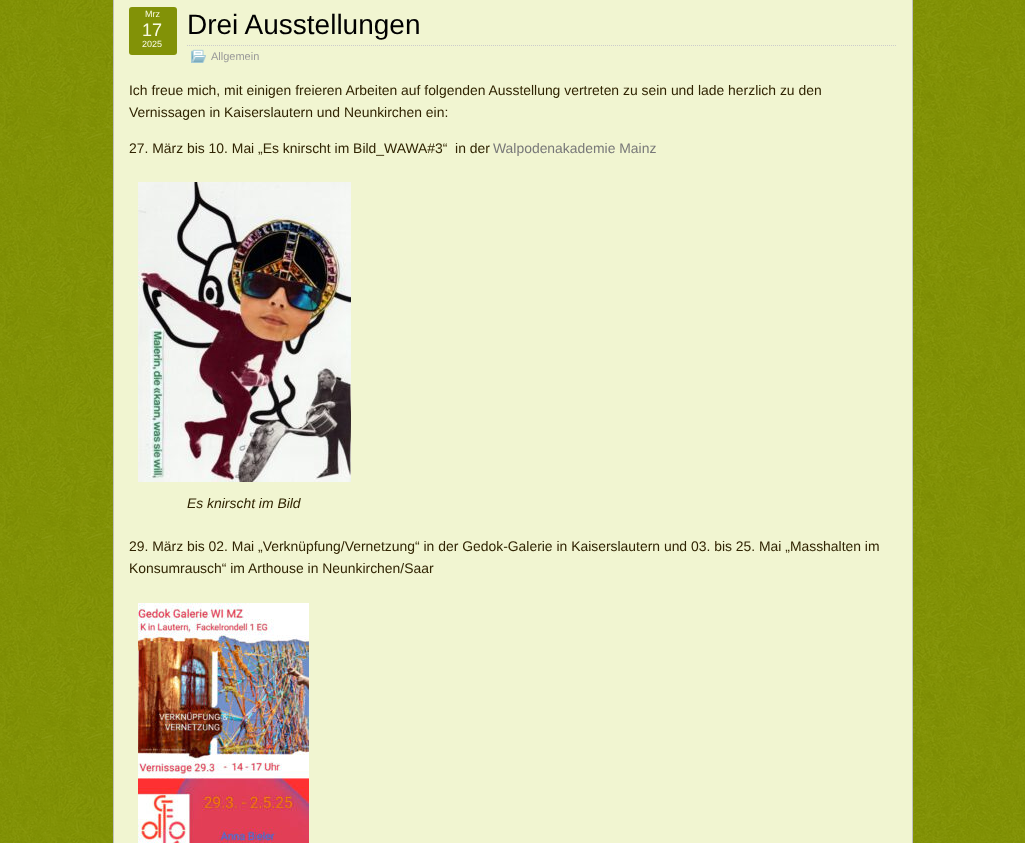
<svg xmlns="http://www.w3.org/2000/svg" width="1025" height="843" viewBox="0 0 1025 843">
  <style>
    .t1 { font: 9px Liberation Sans; fill: #f9fbe4; }
    .t2 { font: 18px Liberation Sans; fill: #f9fbe4; }
    .t3 { font: 28px Liberation Sans; fill: #000; }
    .t4 { font: 11px Liberation Sans; fill: #999; }
    .t5 { font: 13.92px Liberation Sans; fill: #302402; }
    .t6 { font: 13.92px Liberation Sans; fill: #787878; }
    .t7 { font: italic 13.92px Liberation Sans; fill: #302402; }
  </style>
  <rect width="100%" height="100%" fill="#fff"/>
  <image x="0" y="0" width="1025" height="843" href="images/1.png"/>
  <rect x="113.5" y="-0.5" width="799" height="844" fill="#f1f5d1" stroke="#c0c0c0"/>
  <rect x="129" y="7" width="48" height="48" rx="3" fill="#829207"/>
  <text x="145" y="17" class="t1">Mrz</text>
  <text x="142" y="36" class="t2">17</text>
  <text x="142" y="47" class="t1">2025</text>
  <path d="M187 45.5H897" fill="none" stroke="#ccc" stroke-dasharray="1 1"/>
  <text x="187" y="34" class="t3">Drei Ausstellungen</text>
  <image x="191" y="49" width="15" height="14" href="images/2.png"/>
  <text x="211" y="60" class="t4">Allgemein</text>
  <text x="129" y="95" class="t5">Ich freue mich, mit einigen freieren Arbeiten auf folgenden Ausstellung vertreten zu sein und lade herzlich zu den</text>
  <text x="129" y="117" class="t5">Vernissagen in Kaiserslautern und Neunkirchen ein:</text>
  <text x="129" y="153" class="t5" xml:space="preserve">27. März bis 10. Mai „Es knirscht im Bild_WAWA#3“  in der</text>
  <text x="493" y="153" class="t6">Walpodenakademie Mainz</text>
  <image x="138" y="182" width="213" height="300" href="images/3.png"/>
  <text x="187" y="508" class="t7">Es knirscht im Bild</text>
  <text x="129" y="551" class="t5">29. März bis 02. Mai „Verknüpfung/Vernetzung“ in der Gedok-Galerie in Kaiserslautern und 03. bis 25. Mai „Masshalten im</text>
  <text x="129" y="573" class="t5">Konsumrausch“ im Arthouse in Neunkirchen/Saar</text>
  <image x="138" y="603" width="171" height="240" href="images/4.png"/>
</svg>
